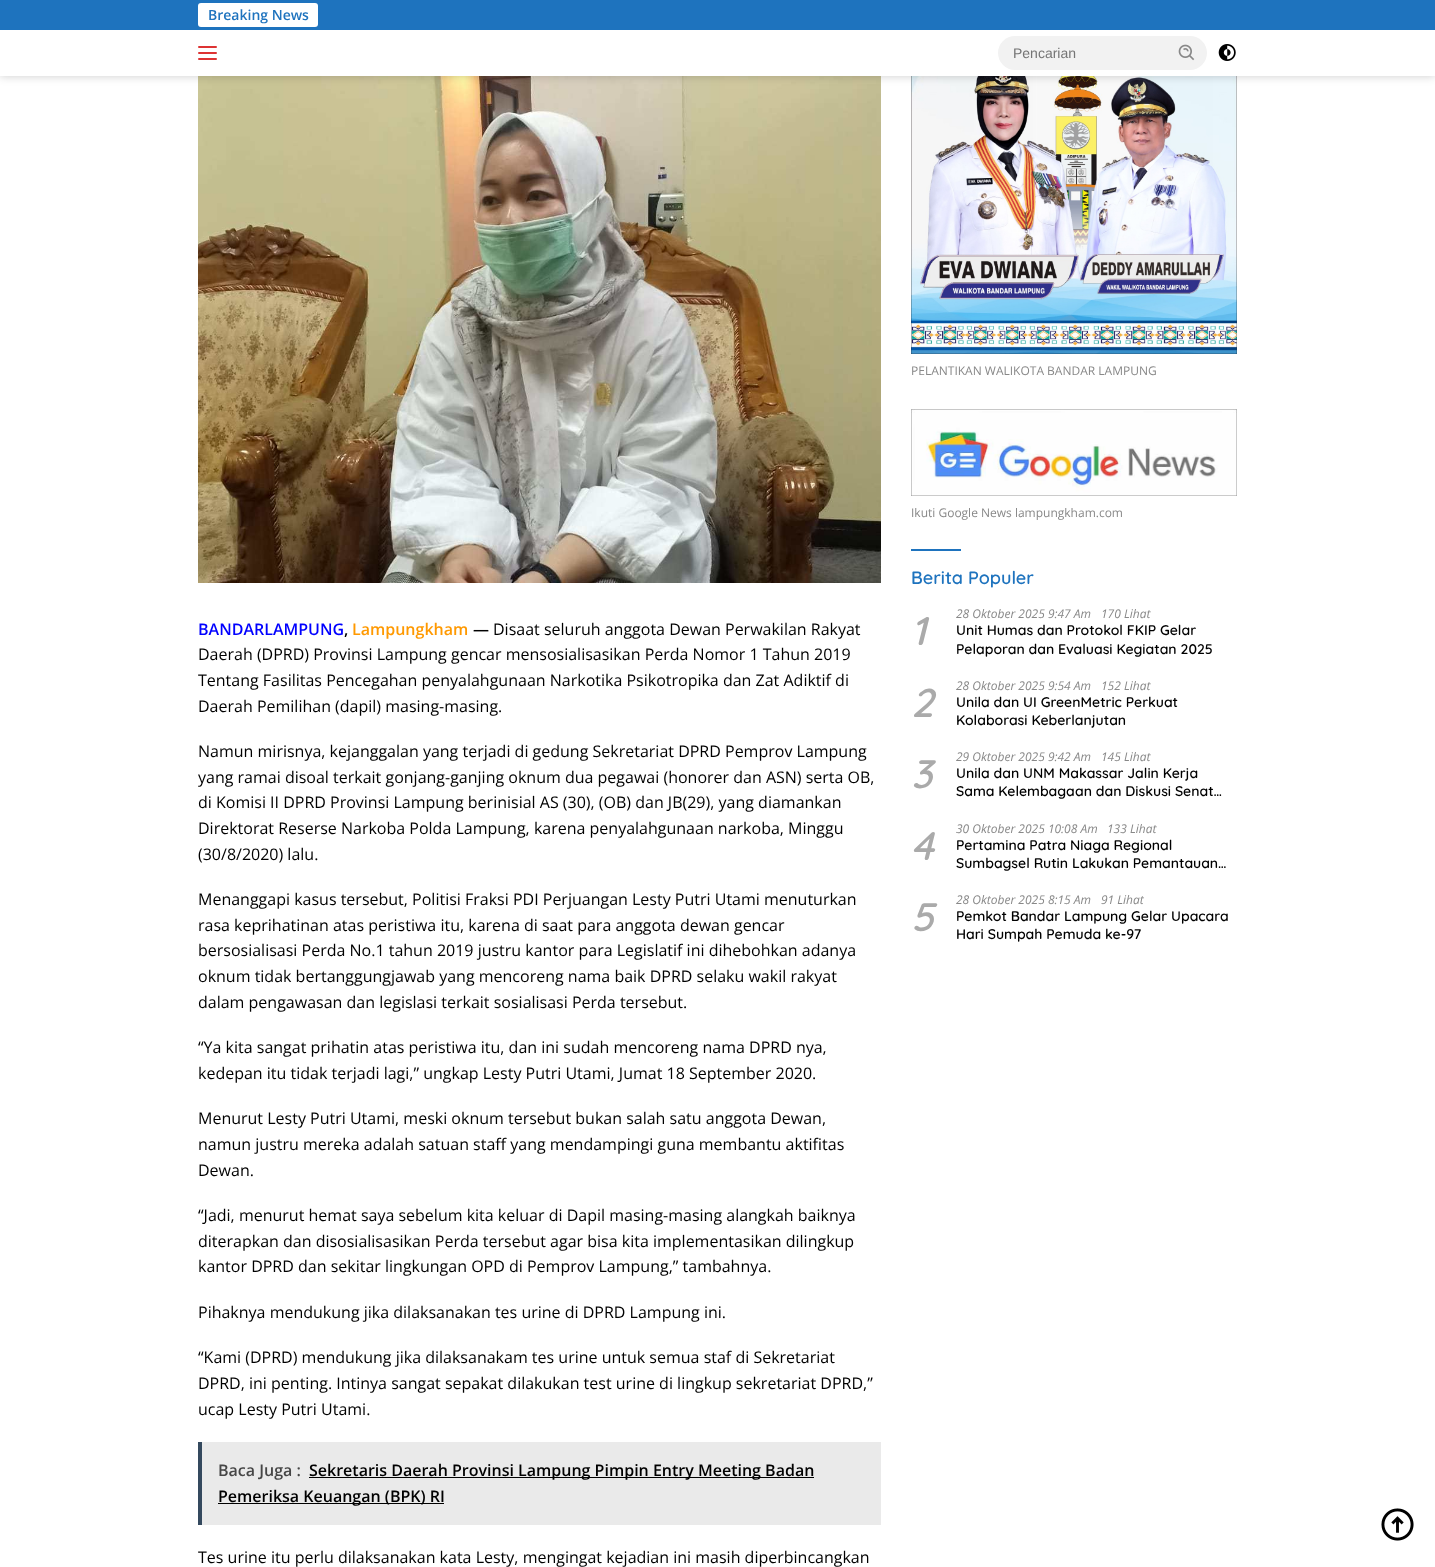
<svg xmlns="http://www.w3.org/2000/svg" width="1435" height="1567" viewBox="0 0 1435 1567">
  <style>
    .t1 { font: 600 14px Open Sans; fill: #1e73be; }
    .t2 { font: 14px Liberation Sans; fill: #757575; }
    .t3 { font: 600 16px Open Sans; fill: #00f; }
    .t4 { font: 600 16px Open Sans; fill: #f90; }
    .t5 { font: 600 16px Open Sans; fill: #000; }
    .t6 { font: 16px Open Sans; fill: #000; }
    .t7 { font: 600 16px Open Sans; fill: #464646; }
    .t8 { font: 12px Open Sans; fill: #888; }
    .t9 { font: 600 18px Quicksand; fill: #1e73be; }
    .t10 { font: italic 600 40px Quicksand; fill: #aaa; }
    .t11 { font: italic 12px Open Sans; fill: #888; }
    .t12 { font: 600 14px Quicksand; fill: #000; }
  </style>
  <rect width="100%" height="100%" fill="#fff"/>
  <image x="198" y="76" width="683" height="507" href="images/3.png"/>
  <image x="911" y="76" width="326" height="278" href="images/4.png"/>
  <rect x="0" y="0" width="1435" height="76" fill="#00000033" filter="blur(5px)"/>
  <rect x="0" y="30" width="1435" height="46" fill="#fff"/>
  <rect x="0" y="0" width="1435" height="30" fill="#1e73be"/>
  <rect x="198" y="3" width="120" height="24" rx="3" fill="#fff"/>
  <text x="208" y="20" class="t1">Breaking News</text>
  <rect x="198" y="46" width="19" height="2" rx="1" fill="#d33"/>
  <rect x="198" y="52" width="19" height="2" rx="1" fill="#d33"/>
  <rect x="198" y="58" width="19" height="2" rx="1" fill="#d33"/>
  <rect x="998" y="36" width="209" height="34" rx="17" fill="#f2f2f2"/>
  <text x="1013" y="58" class="t2">Pencarian</text>
  <image x="1178" y="44" width="17" height="17" href="images/1.png"/>
  <image x="1218" y="44" width="18" height="17" href="images/2.png"/>
  <text x="198" y="635" class="t3">BANDARLAMPUNG</text>
  <text x="352" y="635" class="t4">Lampungkham</text>
  <text x="473" y="635" class="t5">—</text>
  <text x="493" y="635" class="t6">Disaat seluruh anggota Dewan Perwakilan Rakyat</text>
  <text x="344" y="635" class="t5">,</text>
  <text x="198" y="660" class="t6">Daerah (DPRD) Provinsi Lampung gencar mensosialisasikan Perda Nomor 1 Tahun 2019</text>
  <text x="198" y="686" class="t6">Tentang Fasilitas Pencegahan penyalahgunaan Narkotika Psikotropika dan Zat Adiktif di</text>
  <text x="198" y="712" class="t6">Daerah Pemilihan (dapil) masing-masing.</text>
  <text x="198" y="757" class="t6">Namun mirisnya, kejanggalan yang terjadi di gedung Sekretariat DPRD Pemprov Lampung</text>
  <text x="198" y="783" class="t6">yang ramai disoal terkait gonjang-ganjing oknum dua pegawai (honorer dan ASN) serta OB,</text>
  <text x="198" y="808" class="t6">di Komisi II DPRD Provinsi Lampung berinisial AS (30), (OB) dan JB(29), yang diamankan</text>
  <text x="198" y="834" class="t6">Direktorat Reserse Narkoba Polda Lampung, karena penyalahgunaan narkoba, Minggu</text>
  <text x="198" y="860" class="t6">(30/8/2020) lalu.</text>
  <text x="198" y="905" class="t6">Menanggapi kasus tersebut, Politisi Fraksi PDI Perjuangan Lesty Putri Utami menuturkan</text>
  <text x="198" y="931" class="t6">rasa keprihatinan atas peristiwa itu, karena di saat para anggota dewan gencar</text>
  <text x="198" y="956" class="t6">bersosialisasi Perda No.1 tahun 2019 justru kantor para Legislatif ini dihebohkan adanya</text>
  <text x="198" y="982" class="t6">oknum tidak bertanggungjawab yang mencoreng nama baik DPRD selaku wakil rakyat</text>
  <text x="198" y="1008" class="t6">dalam pengawasan dan legislasi terkait sosialisasi Perda tersebut.</text>
  <text x="198" y="1053" class="t6">“Ya kita sangat prihatin atas peristiwa itu, dan ini sudah mencoreng nama DPRD nya,</text>
  <text x="198" y="1079" class="t6">kedepan itu tidak terjadi lagi,” ungkap Lesty Putri Utami, Jumat 18 September 2020.</text>
  <text x="198" y="1124" class="t6">Menurut Lesty Putri Utami, meski oknum tersebut bukan salah satu anggota Dewan,</text>
  <text x="198" y="1150" class="t6">namun justru mereka adalah satuan staff yang mendampingi guna membantu aktifitas</text>
  <text x="198" y="1176" class="t6">Dewan.</text>
  <text x="198" y="1221" class="t6">“Jadi, menurut hemat saya sebelum kita keluar di Dapil masing-masing alangkah baiknya</text>
  <text x="198" y="1247" class="t6">diterapkan dan disosialisasikan Perda tersebut agar bisa kita implementasikan dilingkup</text>
  <text x="198" y="1272" class="t6">kantor DPRD dan sekitar lingkungan OPD di Pemprov Lampung,” tambahnya.</text>
  <text x="198" y="1318" class="t6">Pihaknya mendukung jika dilaksanakan tes urine di DPRD Lampung ini.</text>
  <text x="198" y="1363" class="t6">“Kami (DPRD) mendukung jika dilaksanakam tes urine untuk semua staf di Sekretariat</text>
  <text x="198" y="1389" class="t6">DPRD, ini penting. Intinya sangat sepakat dilakukan test urine di lingkup sekretariat DPRD,”</text>
  <text x="198" y="1415" class="t6">ucap Lesty Putri Utami.</text>
  <rect x="202" y="1442" width="679" height="83" fill="#eaeaea"/>
  <rect x="198" y="1442" width="4" height="83" fill="#34495e"/>
  <text x="218" y="1476" class="t7">Baca Juga :</text>
  <rect x="309" y="1477" width="505" height="1" fill="#000"/>
  <text x="309" y="1476" class="t5">Sekretaris Daerah Provinsi Lampung Pimpin Entry Meeting Badan</text>
  <rect x="218" y="1503" width="226" height="1" fill="#000"/>
  <text x="218" y="1502" class="t5">Pemeriksa Keuangan (BPK) RI</text>
  <text x="198" y="1563" class="t6">Tes urine itu perlu dilaksanakan kata Lesty, mengingat kejadian ini masih diperbincangkan</text>
  <text x="911" y="375" class="t8">PELANTIKAN WALIKOTA BANDAR LAMPUNG</text>
  <image x="911" y="409" width="326" height="87" href="images/5.png"/>
  <text x="911" y="517" class="t8">Ikuti Google News lampungkham.com</text>
  <rect x="911" y="549" width="50" height="2" fill="#1e73be"/>
  <text x="911" y="584" class="t9">Berita Populer</text>
  <text x="911" y="645" class="t10">1</text>
  <text x="956" y="618" class="t11">28 Oktober 2025 9:47 Am</text>
  <text x="1101" y="618" class="t11">170 Lihat</text>
  <text x="956" y="635" class="t12">Unit Humas dan Protokol FKIP Gelar</text>
  <text x="956" y="654" class="t12">Pelaporan dan Evaluasi Kegiatan 2025</text>
  <text x="911" y="717" class="t10">2</text>
  <text x="956" y="690" class="t11">28 Oktober 2025 9:54 Am</text>
  <text x="1101" y="690" class="t11">152 Lihat</text>
  <text x="956" y="707" class="t12">Unila dan UI GreenMetric Perkuat</text>
  <text x="956" y="725" class="t12">Kolaborasi Keberlanjutan</text>
  <text x="911" y="788" class="t10">3</text>
  <text x="956" y="761" class="t11">29 Oktober 2025 9:42 Am</text>
  <text x="1101" y="761" class="t11">145 Lihat</text>
  <text x="956" y="778" class="t12">Unila dan UNM Makassar Jalin Kerja</text>
  <text x="956" y="796" class="t12">Sama Kelembagaan dan Diskusi Senat…</text>
  <text x="911" y="860" class="t10">4</text>
  <text x="956" y="833" class="t11">30 Oktober 2025 10:08 Am</text>
  <text x="1107" y="833" class="t11">133 Lihat</text>
  <text x="956" y="850" class="t12">Pertamina Patra Niaga Regional</text>
  <text x="956" y="868" class="t12">Sumbagsel Rutin Lakukan Pemantauan…</text>
  <text x="911" y="931" class="t10">5</text>
  <text x="956" y="904" class="t11">28 Oktober 2025 8:15 Am</text>
  <text x="1101" y="904" class="t11">91 Lihat</text>
  <text x="956" y="921" class="t12">Pemkot Bandar Lampung Gelar Upacara</text>
  <text x="956" y="939" class="t12">Hari Sumpah Pemuda ke-97</text>
  <image x="1381" y="1508" width="33" height="33" href="images/6.png"/>
</svg>
